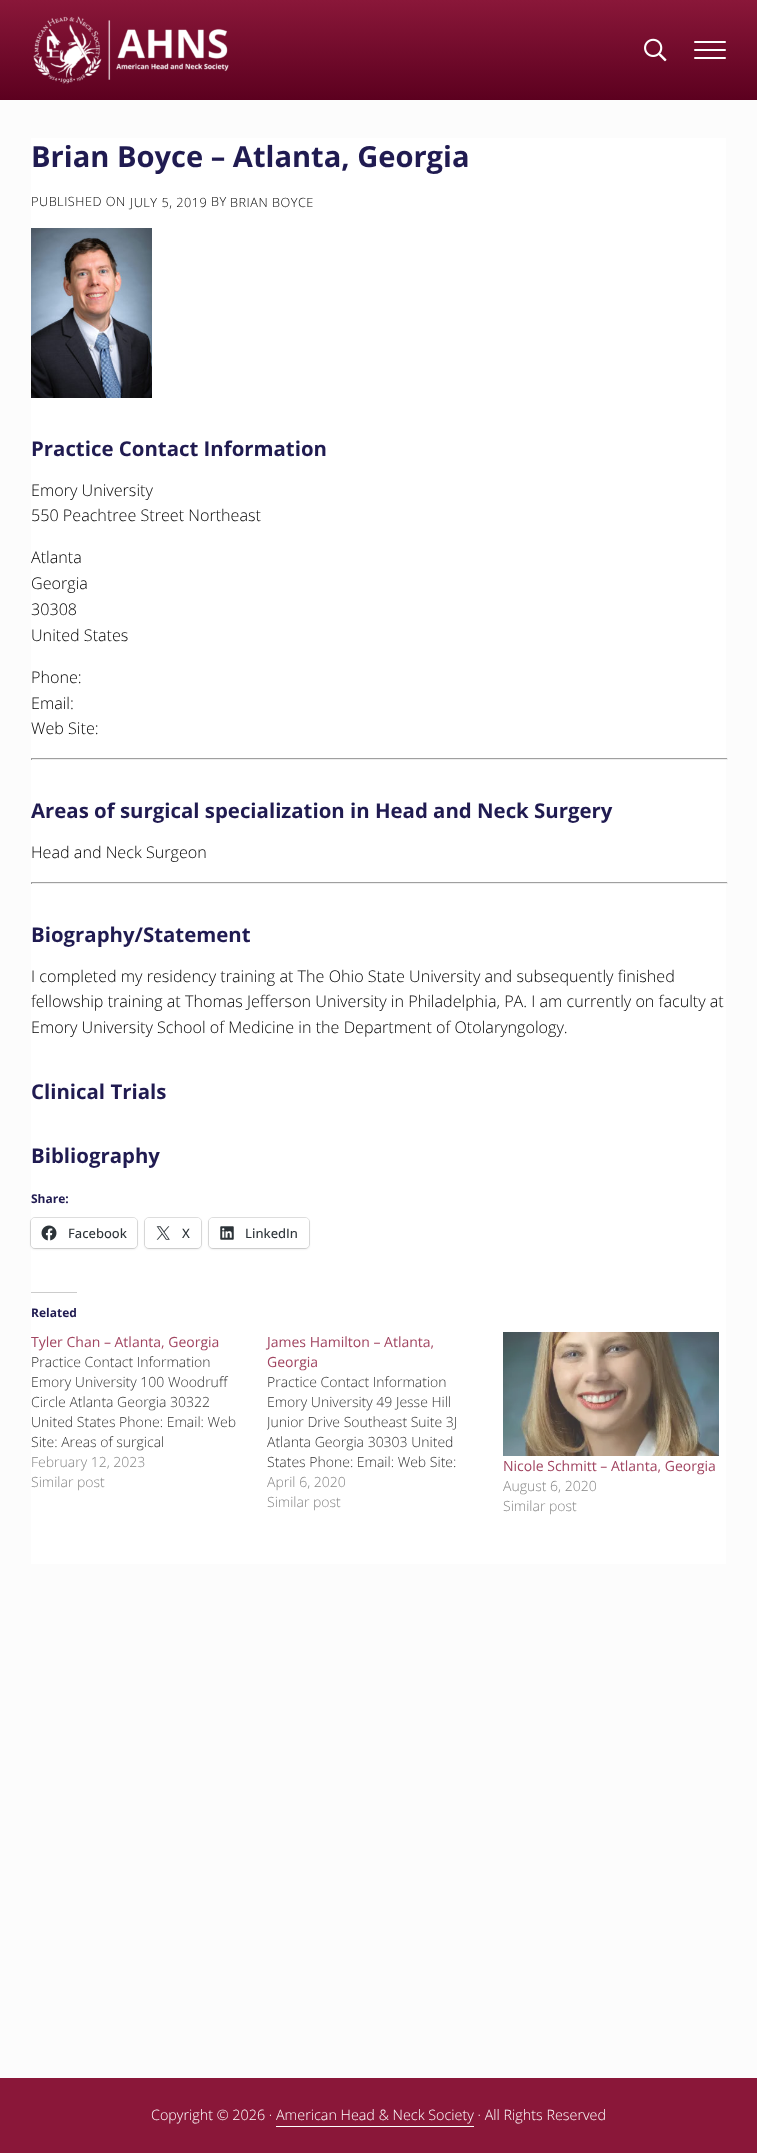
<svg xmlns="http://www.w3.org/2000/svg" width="757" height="2153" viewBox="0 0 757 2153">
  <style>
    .t1 { font: bold 29.1px Open Sans; fill: #201b51; }
    .t2 { font: 300 12.75px Open Sans; letter-spacing: 0.5px; fill: #000; }
    .t3 { font: bold 20.4px Open Sans; fill: #201b51; }
    .t4 { font: 300 16.15px Open Sans; fill: #000; }
    .t5 { font: bold 12px Open Sans; fill: #201b51; }
    .t6 { font: 500 13px Open Sans; fill: #2c3338; }
    .t7 { font: 14px Open Sans; fill: #a14561; }
    .t8 { font: 300 14px Open Sans; fill: #333; }
    .t9 { font: 300 14px Open Sans; fill: #858585; }
    .t10 { font: 300 14.35px Open Sans; fill: #fff; }
  </style>
  <defs>
    <linearGradient id="g1" gradientUnits="userSpaceOnUse" x1="379" y1="100" x2="379" y2="0"><stop offset="0" stop-color="#5c001f"/><stop offset="1" stop-color="#8a1739"/></linearGradient>
    <clipPath id="clip1"><rect x="267" y="1372" width="216" height="100"/></clipPath>
  </defs>
  <rect width="100%" height="100%" fill="#fcfcfc"/>
  <rect x="0" y="0" width="757" height="100" fill="url(#g1)"/>
  <image x="33" y="16" width="196" height="68" href="images/1.png"/>
  <image x="644" y="38" width="23" height="24" href="images/2.png"/>
  <rect x="694" y="49" width="32" height="2" rx="1" fill="#fff"/>
  <rect x="694" y="41" width="32" height="2" rx="1" fill="#fff"/>
  <rect x="694" y="57" width="32" height="2" rx="1" fill="#fff"/>
  <rect x="31" y="138" width="695" height="1426" fill="#fff"/>
  <text x="31" y="167" class="t1">Brian Boyce – Atlanta, Georgia</text>
  <text x="31" y="206" class="t2">PUBLISHED ON</text>
  <text x="130" y="207" class="t2">JULY 5, 2019</text>
  <text x="211" y="206" class="t2">BY</text>
  <text x="230" y="207" class="t2">BRIAN BOYCE</text>
  <image x="31" y="228" width="121" height="170" href="images/3.png"/>
  <text x="31" y="456" class="t3">Practice Contact Information</text>
  <text x="31" y="496" class="t4">Emory University</text>
  <text x="31" y="521" class="t4">550 Peachtree Street Northeast</text>
  <text x="31" y="563" class="t4">Atlanta</text>
  <text x="31" y="589" class="t4">Georgia</text>
  <text x="31" y="615" class="t4">30308</text>
  <text x="31" y="641" class="t4">United States</text>
  <text x="31" y="683" class="t4">Phone:</text>
  <text x="31" y="709" class="t4">Email:</text>
  <text x="31" y="734" class="t4">Web Site:</text>
  <rect x="31" y="758" width="697" height="1" fill="#9f9f9f"/>
  <rect x="727" y="758" width="1" height="2" fill="#eee"/>
  <rect x="31" y="759" width="697" height="1" fill="#eee"/>
  <rect x="31" y="758" width="1" height="2" fill="#9f9f9f"/>
  <text x="31" y="818" class="t3">Areas of surgical specialization in Head and Neck Surgery</text>
  <text x="31" y="858" class="t4">Head and Neck Surgeon</text>
  <rect x="31" y="882" width="697" height="1" fill="#9f9f9f"/>
  <rect x="727" y="882" width="1" height="2" fill="#eee"/>
  <rect x="31" y="883" width="697" height="1" fill="#eee"/>
  <rect x="31" y="882" width="1" height="2" fill="#9f9f9f"/>
  <text x="31" y="942" class="t3">Biography/Statement</text>
  <text x="31" y="982" class="t4">I completed my residency training at The Ohio State University and subsequently finished</text>
  <text x="31" y="1007" class="t4">fellowship training at Thomas Jefferson University in Philadelphia, PA. I am currently on faculty at</text>
  <text x="31" y="1033" class="t4">Emory University School of Medicine in the Department of Otolaryngology.</text>
  <text x="31" y="1099" class="t3">Clinical Trials</text>
  <text x="31" y="1163" class="t3">Bibliography</text>
  <text x="31" y="1203" class="t5">Share:</text>
  <rect x="30.5" y="1217.5" width="107" height="31" rx="4.5" fill="none" stroke="#0000001f"/>
  <rect x="31" y="1219" width="106" height="30" rx="4" fill="#0000001f" filter="blur(1px)"/>
  <rect x="31" y="1218" width="106" height="30" rx="4" fill="#fff"/>
  <image x="41" y="1225" width="16" height="16" href="images/4.png"/>
  <text x="68" y="1238" class="t6">Facebook</text>
  <rect x="144.5" y="1217.5" width="57" height="31" rx="4.5" fill="none" stroke="#e0e0e0"/>
  <rect x="145" y="1219" width="56" height="30" rx="4" fill="#0000001f" filter="blur(1px)"/>
  <rect x="145" y="1218" width="56" height="30" rx="4" fill="#fff"/>
  <image x="156" y="1226" width="14" height="14" href="images/5.png"/>
  <text x="182" y="1238" class="t6">X</text>
  <rect x="208.5" y="1217.5" width="101" height="31" rx="4.5" fill="none" stroke="#e0e0e0"/>
  <rect x="209" y="1219" width="100" height="30" rx="4" fill="#0000001f" filter="blur(1px)"/>
  <rect x="209" y="1218" width="100" height="30" rx="4" fill="#fff"/>
  <image x="220" y="1226" width="14" height="14" href="images/6.png"/>
  <text x="245" y="1238" class="t6">LinkedIn</text>
  <rect x="31" y="1292" width="46" height="1" fill="#ccc"/>
  <text x="31" y="1317" class="t5">Related</text>
  <text x="31" y="1347" class="t7">Tyler Chan – Atlanta, Georgia</text>
  <text x="31" y="1367" class="t8">Practice Contact Information</text>
  <text x="31" y="1387" class="t8">Emory University 100 Woodruff</text>
  <text x="31" y="1407" class="t8">Circle Atlanta Georgia 30322</text>
  <text x="31" y="1427" class="t8">United States Phone: Email: Web</text>
  <text x="31" y="1447" class="t8">Site: Areas of surgical</text>
  <text x="31" y="1467" class="t9">February 12, 2023</text>
  <text x="31" y="1487" class="t9">Similar post</text>
  <text x="267" y="1347" class="t7">James Hamilton – Atlanta,</text>
  <text x="267" y="1367" class="t7">Georgia</text>
  <text x="267" y="1387" class="t8">Practice Contact Information</text>
  <text x="267" y="1407" class="t8">Emory University 49 Jesse Hill</text>
  <g clip-path="url(#clip1)">
    <text x="267" y="1427" class="t8">Junior Drive Southeast Suite 3J</text>
  </g>
  <text x="267" y="1447" class="t8">Atlanta Georgia 30303 United</text>
  <text x="267" y="1467" class="t8">States Phone: Email: Web Site:</text>
  <text x="267" y="1487" class="t9">April 6, 2020</text>
  <text x="267" y="1507" class="t9">Similar post</text>
  <image x="503" y="1332" width="216" height="124" href="images/7.png"/>
  <text x="503" y="1471" class="t7">Nicole Schmitt – Atlanta, Georgia</text>
  <text x="503" y="1491" class="t9">August 6, 2020</text>
  <text x="503" y="1511" class="t9">Similar post</text>
  <rect x="0" y="2078" width="757" height="75" fill="#8a1739"/>
  <text x="151" y="2120" class="t10">Copyright © 2026 · American Head &amp; Neck Society · All Rights Reserved</text>
  <rect x="276" y="2126" width="198" height="1" fill="#fff"/>
</svg>
